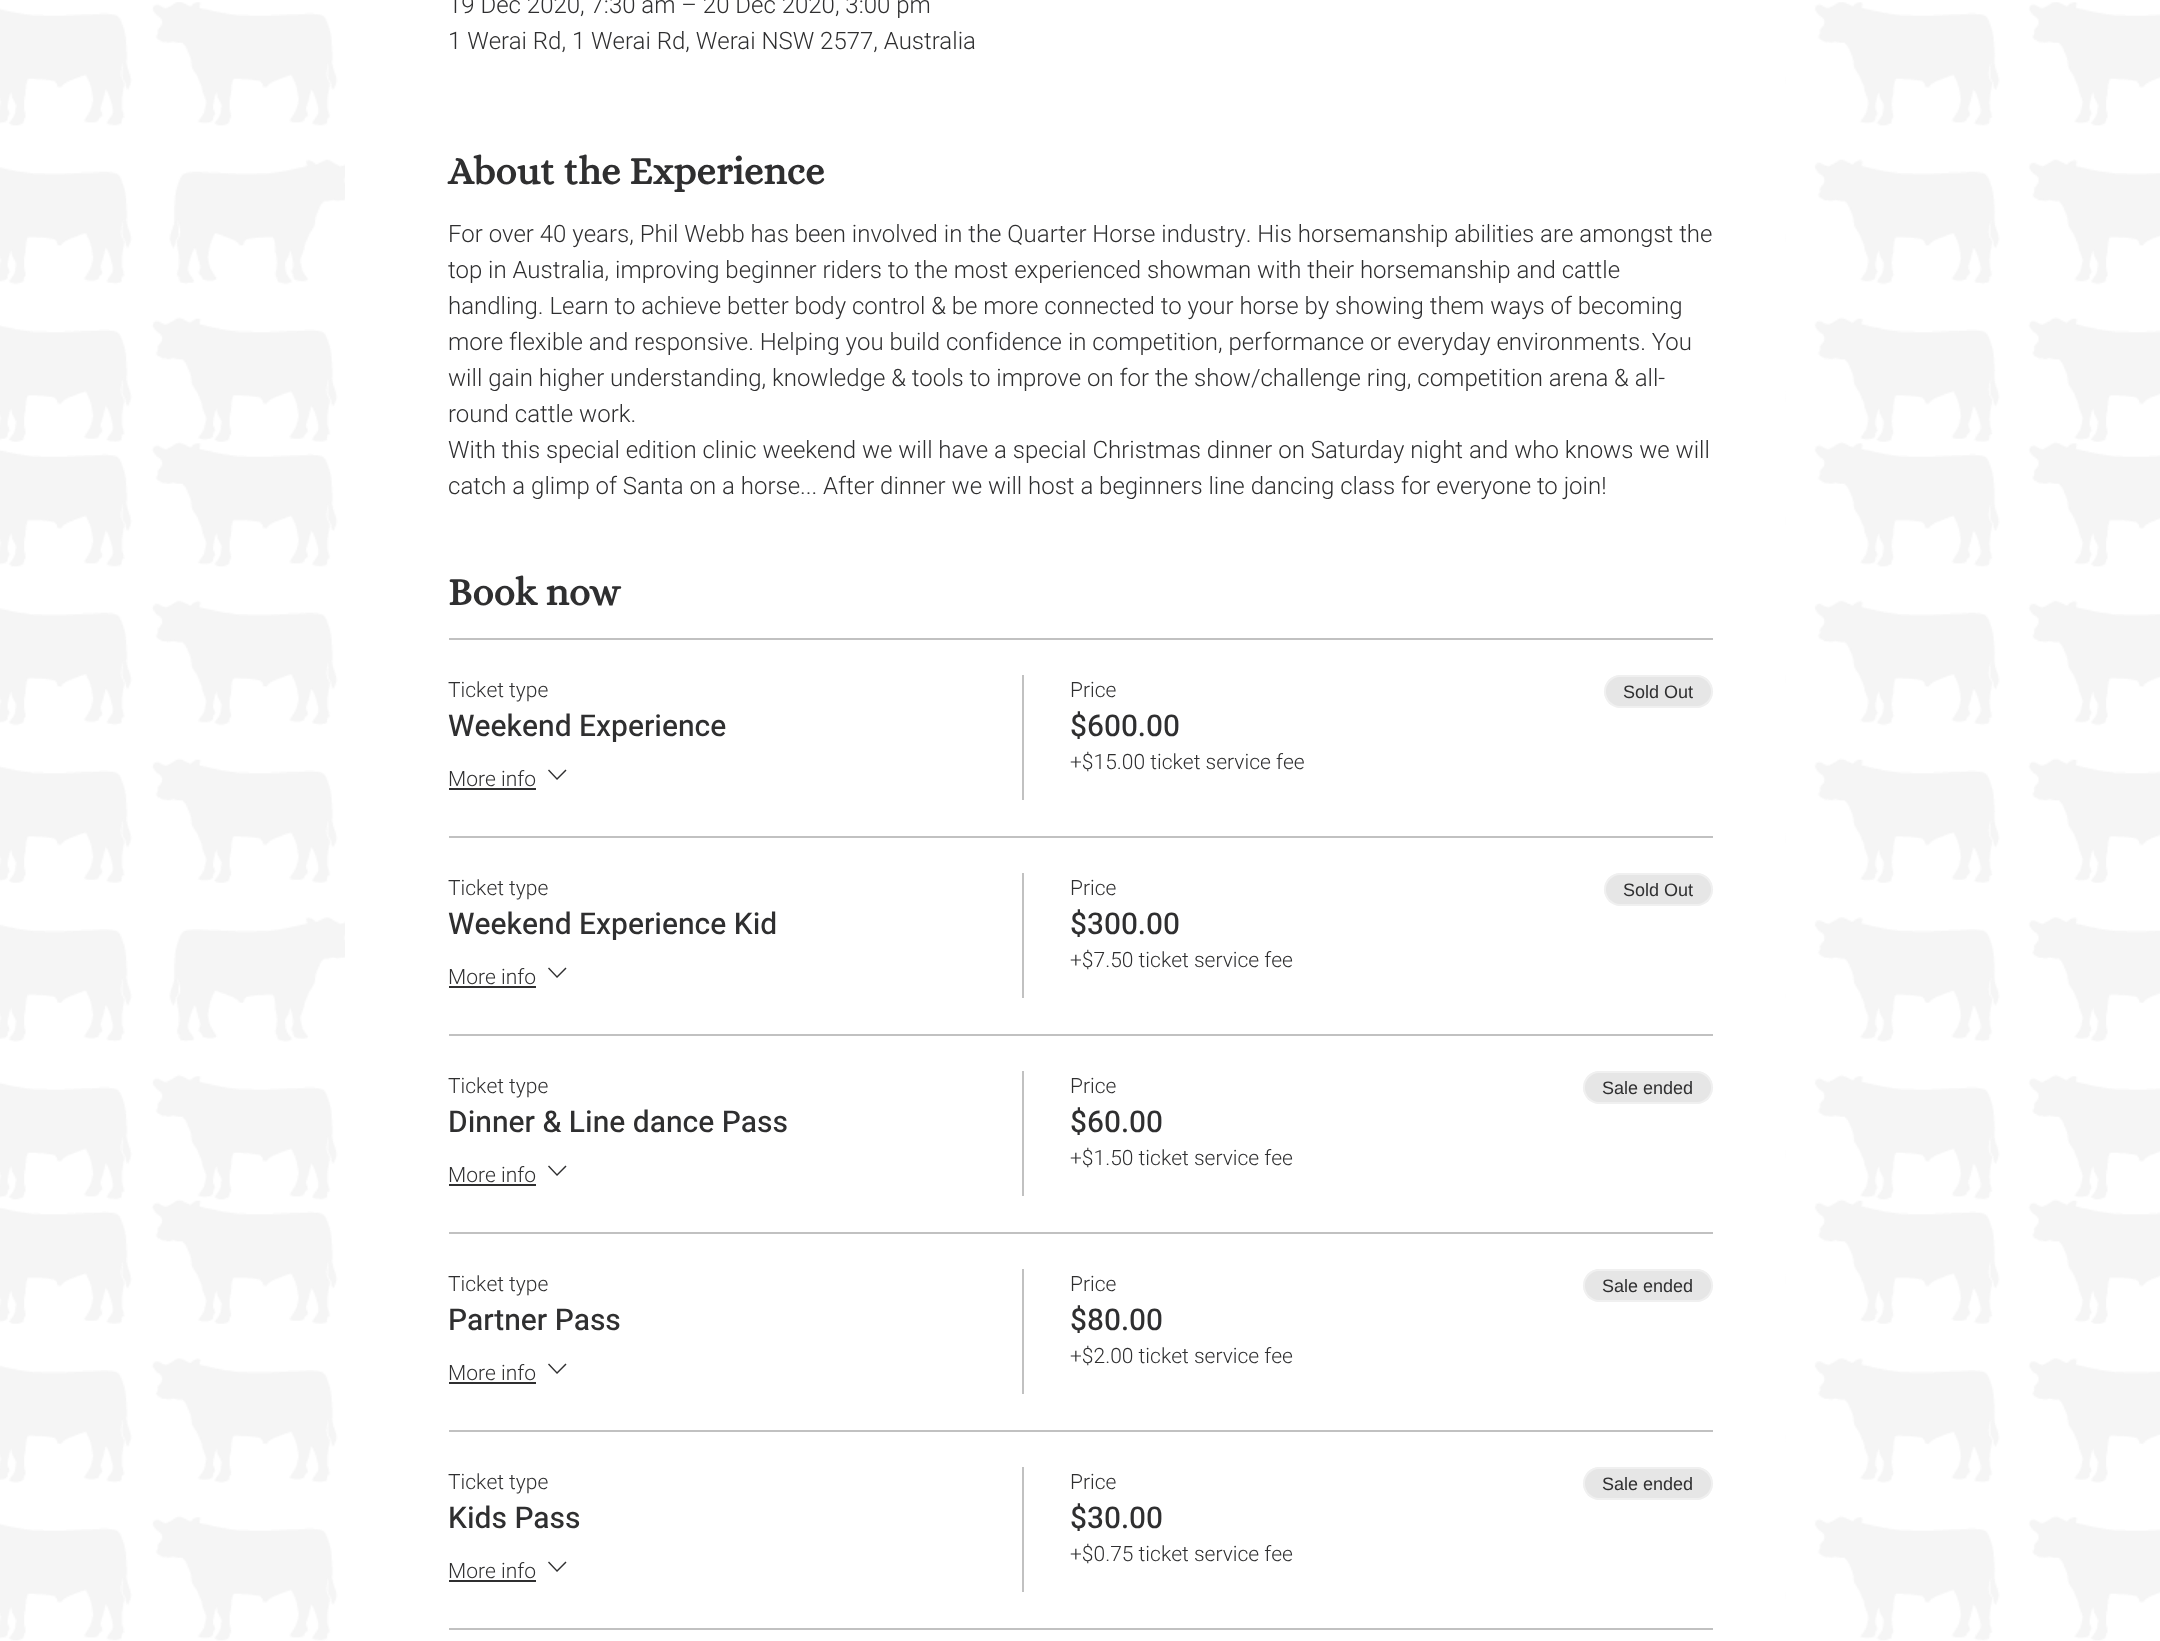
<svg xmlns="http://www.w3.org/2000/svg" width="2160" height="1641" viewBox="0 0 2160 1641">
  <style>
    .t1 { font: 300 24px Heebo; fill: #2f2f30; }
    .t2 { font: bold 39px Alice; fill: #2f2f30; }
    .t3 { font: 300 21px Heebo; fill: #2f2f30; }
    .t4 { font: 500 30px Heebo; fill: #2f2f30; }
    .t5 { font: 18px Liberation Sans; fill: #2f2f30; }
  </style>
  <rect width="100%" height="100%" fill="#fff"/>
  <image x="0" y="2" width="2160" height="1639" href="images/1.png"/>
  <rect x="345" y="2" width="1440" height="1639" fill="#fff"/>
  <text x="448" y="13" class="t1">19 Dec 2020, 7:30 am – 20 Dec 2020, 3:00 pm</text>
  <text x="448" y="49" class="t1">1 Werai Rd, 1 Werai Rd, Werai NSW 2577, Australia</text>
  <text x="448" y="184" class="t2">About the Experience</text>
  <text x="448" y="242" class="t1">For over 40 years, Phil Webb has been involved in the Quarter Horse industry. His horsemanship abilities are amongst the</text>
  <text x="448" y="278" class="t1">top in Australia, improving beginner riders to the most experienced showman with their horsemanship and cattle</text>
  <text x="448" y="314" class="t1">handling. Learn to achieve better body control &amp; be more connected to your horse by showing them ways of becoming</text>
  <text x="448" y="350" class="t1">more flexible and responsive. Helping you build confidence in competition, performance or everyday environments. You</text>
  <text x="448" y="386" class="t1">will gain higher understanding, knowledge &amp; tools to improve on for the show/challenge ring, competition arena &amp; all-</text>
  <text x="448" y="422" class="t1">round cattle work.</text>
  <text x="448" y="458" class="t1">With this special edition clinic weekend we will have a special Christmas dinner on Saturday night and who knows we will</text>
  <text x="448" y="494" class="t1">catch a glimp of Santa on a horse... After dinner we will host a beginners line dancing class for everyone to join!</text>
  <text x="448" y="605" class="t2">Book now</text>
  <rect x="449" y="638" width="1264" height="2" fill="#c1c1c1"/>
  <rect x="449" y="836" width="1264" height="2" fill="#c1c1c1"/>
  <text x="448" y="697" class="t3">Ticket type</text>
  <text x="448" y="736" class="t4">Weekend Experience</text>
  <text x="448" y="786" class="t3">More info</text>
  <rect x="449" y="788" width="87" height="2" fill="#2f2f30"/>
  <path d="M565.5 769.5L566.5 770.5L557 780L548 770.5L549 769.5L557 778Z" fill="#2f2f30" fill-rule="evenodd"/>
  <rect x="1022" y="675" width="2" height="125" fill="#c1c1c1"/>
  <text x="1070" y="697" class="t3">Price</text>
  <text x="1070" y="736" class="t4">$600.00</text>
  <text x="1070" y="769" class="t3">+$15.00 ticket service fee</text>
  <rect x="1604" y="675" width="109" height="33" rx="16.5" fill="#e6e6e6"/>
  <rect x="1605" y="676" width="107" height="31" rx="15.5" fill="none" stroke="#ffffff66" stroke-width="2"/>
  <text x="1623" y="698" class="t5">Sold Out</text>
  <rect x="449" y="1034" width="1264" height="2" fill="#c1c1c1"/>
  <text x="448" y="895" class="t3">Ticket type</text>
  <text x="448" y="934" class="t4">Weekend Experience Kid</text>
  <text x="448" y="984" class="t3">More info</text>
  <rect x="449" y="986" width="87" height="2" fill="#2f2f30"/>
  <path d="M565.5 967.5L566.5 968.5L557 978L548 968.5L549 967.5L557 976Z" fill="#2f2f30" fill-rule="evenodd"/>
  <rect x="1022" y="873" width="2" height="125" fill="#c1c1c1"/>
  <text x="1070" y="895" class="t3">Price</text>
  <text x="1070" y="934" class="t4">$300.00</text>
  <text x="1070" y="967" class="t3">+$7.50 ticket service fee</text>
  <rect x="1604" y="873" width="109" height="33" rx="16.5" fill="#e6e6e6"/>
  <rect x="1605" y="874" width="107" height="31" rx="15.5" fill="none" stroke="#ffffff66" stroke-width="2"/>
  <text x="1623" y="896" class="t5">Sold Out</text>
  <rect x="449" y="1232" width="1264" height="2" fill="#c1c1c1"/>
  <text x="448" y="1093" class="t3">Ticket type</text>
  <text x="448" y="1132" class="t4">Dinner &amp; Line dance Pass</text>
  <text x="448" y="1182" class="t3">More info</text>
  <rect x="449" y="1184" width="87" height="2" fill="#2f2f30"/>
  <path d="M565.5 1165.5L566.5 1166.5L557 1176L548 1166.5L549 1165.5L557 1174Z" fill="#2f2f30" fill-rule="evenodd"/>
  <rect x="1022" y="1071" width="2" height="125" fill="#c1c1c1"/>
  <text x="1070" y="1093" class="t3">Price</text>
  <text x="1070" y="1132" class="t4">$60.00</text>
  <text x="1070" y="1165" class="t3">+$1.50 ticket service fee</text>
  <rect x="1583" y="1071" width="130" height="33" rx="16.5" fill="#e6e6e6"/>
  <rect x="1584" y="1072" width="128" height="31" rx="15.5" fill="none" stroke="#ffffff66" stroke-width="2"/>
  <text x="1602" y="1094" class="t5">Sale ended</text>
  <rect x="449" y="1430" width="1264" height="2" fill="#c1c1c1"/>
  <text x="448" y="1291" class="t3">Ticket type</text>
  <text x="448" y="1330" class="t4">Partner Pass</text>
  <text x="448" y="1380" class="t3">More info</text>
  <rect x="449" y="1382" width="87" height="2" fill="#2f2f30"/>
  <path d="M565.5 1363.5L566.5 1364.5L557 1374L548 1364.5L549 1363.5L557 1372Z" fill="#2f2f30" fill-rule="evenodd"/>
  <rect x="1022" y="1269" width="2" height="125" fill="#c1c1c1"/>
  <text x="1070" y="1291" class="t3">Price</text>
  <text x="1070" y="1330" class="t4">$80.00</text>
  <text x="1070" y="1363" class="t3">+$2.00 ticket service fee</text>
  <rect x="1583" y="1269" width="130" height="33" rx="16.5" fill="#e6e6e6"/>
  <rect x="1584" y="1270" width="128" height="31" rx="15.5" fill="none" stroke="#ffffff66" stroke-width="2"/>
  <text x="1602" y="1292" class="t5">Sale ended</text>
  <rect x="449" y="1628" width="1264" height="2" fill="#c1c1c1"/>
  <text x="448" y="1489" class="t3">Ticket type</text>
  <text x="448" y="1528" class="t4">Kids Pass</text>
  <text x="448" y="1578" class="t3">More info</text>
  <rect x="449" y="1580" width="87" height="2" fill="#2f2f30"/>
  <path d="M565.5 1561.5L566.5 1562.5L557 1572L548 1562.5L549 1561.5L557 1570Z" fill="#2f2f30" fill-rule="evenodd"/>
  <rect x="1022" y="1467" width="2" height="125" fill="#c1c1c1"/>
  <text x="1070" y="1489" class="t3">Price</text>
  <text x="1070" y="1528" class="t4">$30.00</text>
  <text x="1070" y="1561" class="t3">+$0.75 ticket service fee</text>
  <rect x="1583" y="1467" width="130" height="33" rx="16.5" fill="#e6e6e6"/>
  <rect x="1584" y="1468" width="128" height="31" rx="15.5" fill="none" stroke="#ffffff66" stroke-width="2"/>
  <text x="1602" y="1490" class="t5">Sale ended</text>
</svg>
